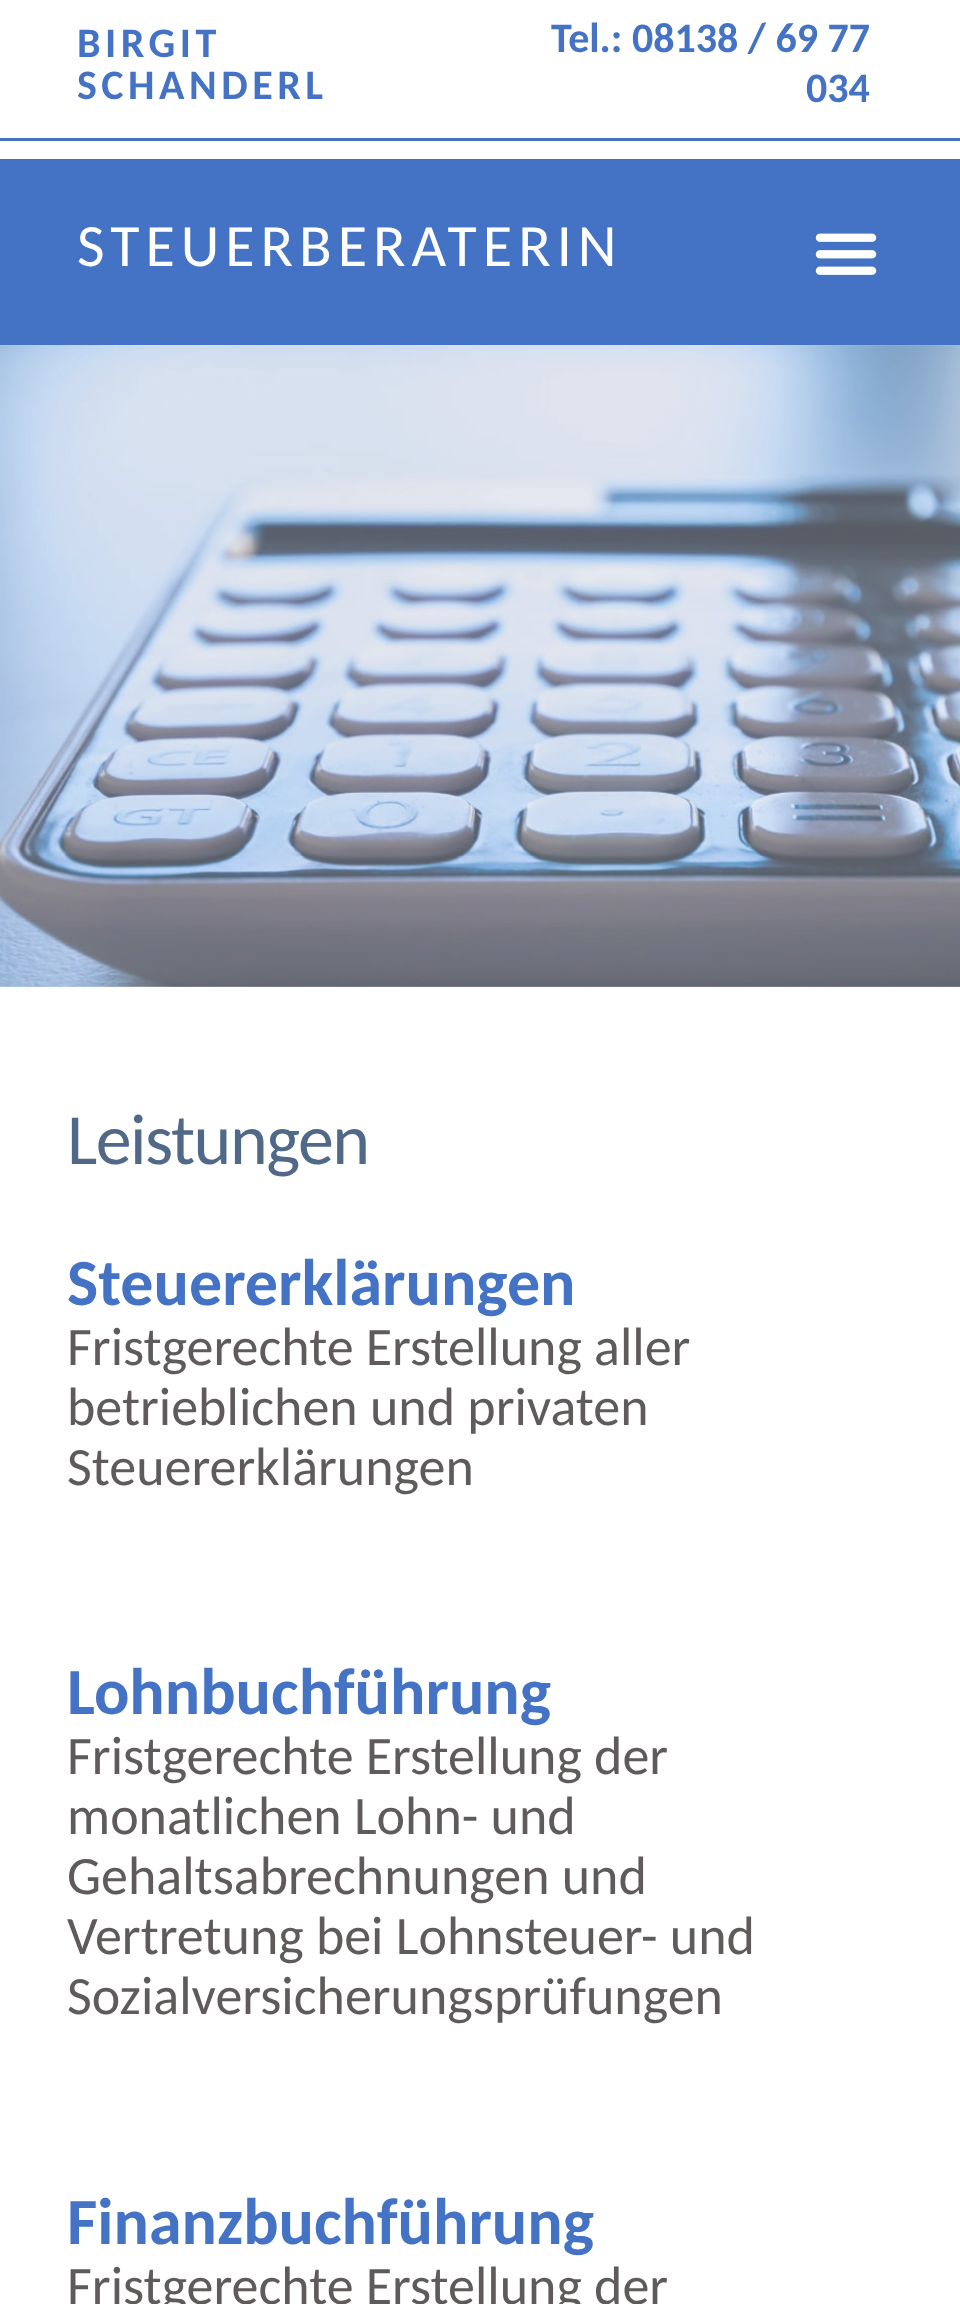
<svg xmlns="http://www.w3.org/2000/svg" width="960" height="2304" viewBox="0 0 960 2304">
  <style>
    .t1 { font: bold 42px Carlito; letter-spacing: 4.5px; fill: #4472c4; }
    .t2 { font: bold 42px Carlito; fill: #4472c4; }
    .t3 { font: 60px Carlito; letter-spacing: 6px; fill: #fff; }
    .t4 { font: 72px Carlito; letter-spacing: -1.5px; fill: #516989; }
    .t5 { font: bold 66px Carlito; fill: #4472c4; }
    .t6 { font: 54px Carlito; fill: #5f5b5b; }
  </style>
  <rect width="100%" height="100%" fill="#fff"/>
  <text x="77" y="57" class="t1">BIRGIT</text>
  <text x="77" y="99" class="t1">SCHANDERL</text>
  <text x="551" y="52" class="t2">Tel.: 08138 / 69 77</text>
  <text x="806" y="102" class="t2">034</text>
  <rect x="0" y="138" width="960" height="3" fill="#4472c4"/>
  <rect x="0" y="159" width="960" height="186" fill="#4472c4"/>
  <text x="77" y="266" class="t3">STEUERBERATERIN</text>
  <image x="815" y="233" width="62" height="42" href="images/1.png"/>
  <rect x="0" y="345" width="960" height="642" fill="#ecf1f9"/>
  <image x="0" y="345" width="960" height="642" href="images/2.png"/>
  <text x="67" y="1164" class="t4">Leistungen</text>
  <text x="67" y="1305" class="t5">Steuererklärungen</text>
  <text x="67" y="1365" class="t6">Fristgerechte Erstellung aller</text>
  <text x="67" y="1425" class="t6">betrieblichen und privaten</text>
  <text x="67" y="1485" class="t6">Steuererklärungen</text>
  <text x="67" y="1714" class="t5">Lohnbuchführung</text>
  <text x="67" y="1774" class="t6">Fristgerechte Erstellung der</text>
  <text x="67" y="1834" class="t6">monatlichen Lohn- und</text>
  <text x="67" y="1894" class="t6">Gehaltsabrechnungen und</text>
  <text x="67" y="1954" class="t6">Vertretung bei Lohnsteuer- und</text>
  <text x="67" y="2014" class="t6">Sozialversicherungsprüfungen</text>
  <text x="67" y="2244" class="t5">Finanzbuchführung</text>
  <text x="67" y="2304" class="t6">Fristgerechte Erstellung der</text>
</svg>
